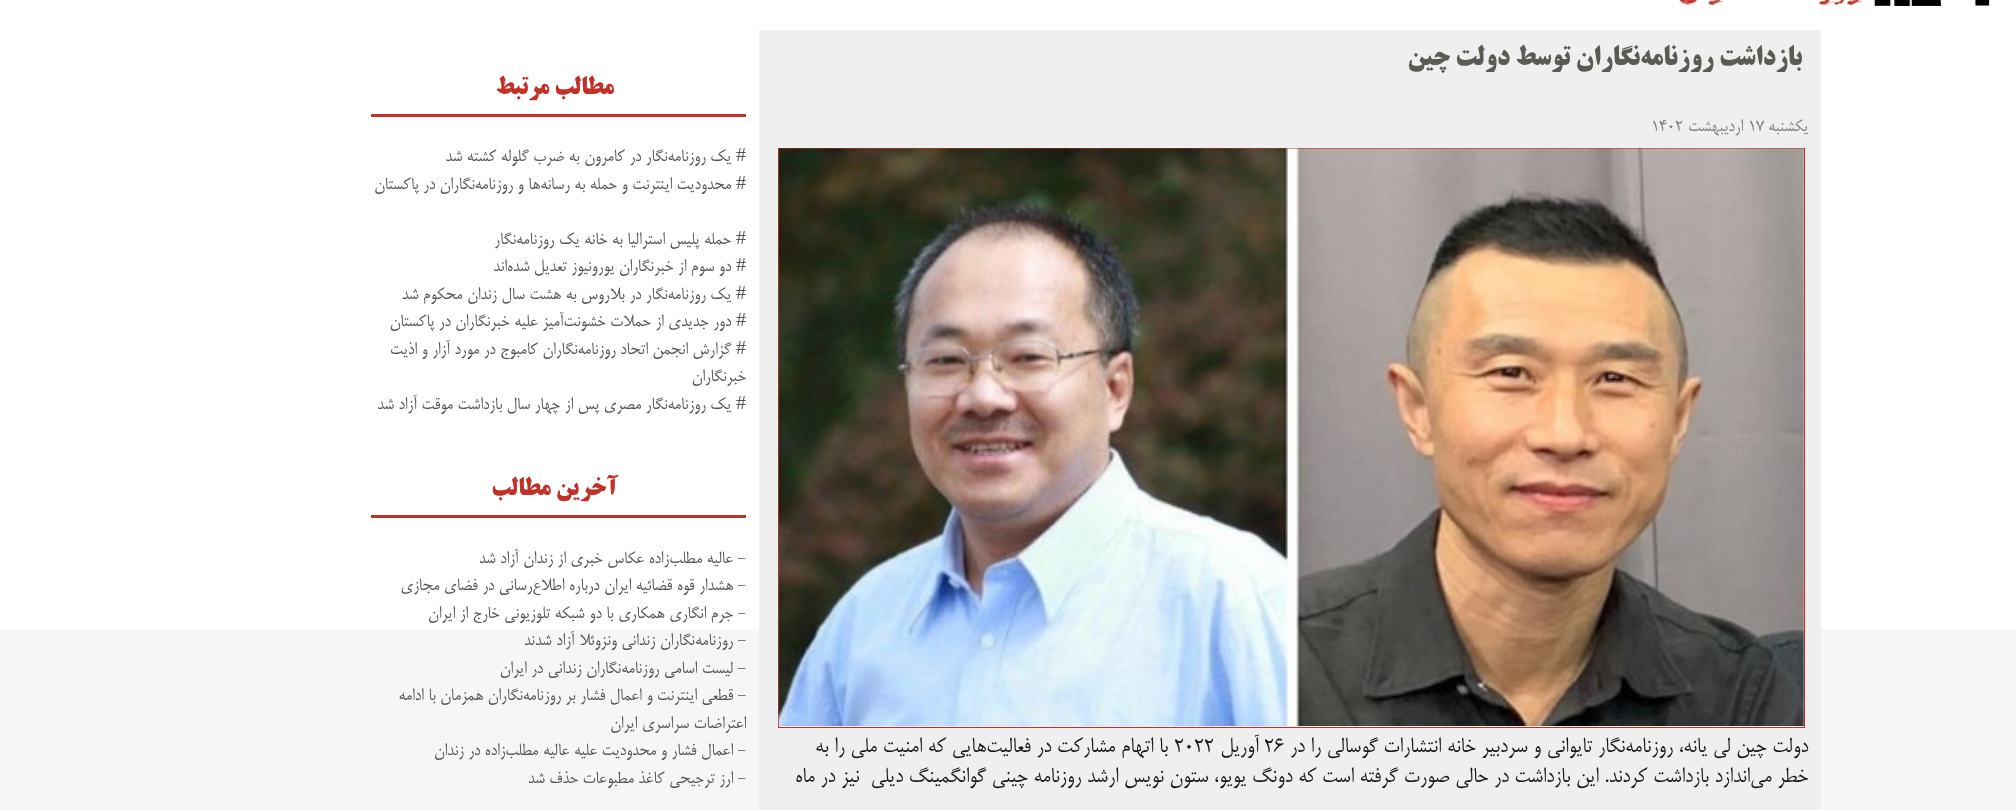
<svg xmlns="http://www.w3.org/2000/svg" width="2016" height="810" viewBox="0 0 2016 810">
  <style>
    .t1 { font: bold 27.5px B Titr; direction: rtl; fill: #5b5b55; }
    .t2 { font: 20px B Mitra; direction: rtl; fill: #7d7d79; }
    .t3 { font: 20px B Mitra; fill: #7d7d79; }
    .t4 { font: 25px B Mitra; direction: rtl; fill: #191818; }
    .t5 { font: 25px B Mitra; fill: #191818; }
    .t6 { font: bold 25px B Titr; direction: rtl; fill: #c13128; }
    .t7 { font: 20px Liberation Serif; direction: rtl; fill: #545454; }
    .t8 { font: 20px B Mitra; direction: rtl; fill: #545454; }
  </style>
  <rect width="100%" height="100%" fill="#f6f6f6"/>
  <rect x="0" y="0" width="2016" height="629" fill="#fff"/>
  <image x="1679" y="0" width="311" height="6" href="images/1.png"/>
  <rect x="759" y="30" width="1062" height="780" fill="#efefef"/>
  <text x="1802" y="65" class="t1">بازداشت روزنامه‌نگاران توسط دولت چین</text>
  <text x="1808" y="131" class="t2">یکشنبه</text>
  <text x="1748" y="131" class="t3">۱۷</text>
  <text x="1743" y="131" class="t2">اردیبهشت</text>
  <text x="1651" y="131" class="t3">۱۴۰۲</text>
  <rect x="778.5" y="148.5" width="1026" height="579" fill="none" stroke="#c13128"/>
  <image x="778" y="148" width="1026" height="578" href="images/2.png"/>
  <text x="1808" y="752" class="t4">دولت چین لی یانه، روزنامه‌نگار تایوانی و سردبیر خانه انتشارات گوسالی را در</text>
  <text x="1264" y="752" class="t5">۲۶</text>
  <text x="1259" y="752" class="t4">آوریل</text>
  <text x="1174" y="752" class="t5">۲۰۲۲</text>
  <text x="1168" y="752" class="t4">با اتهام مشارکت در فعالیت‌هایی که امنیت ملی را به</text>
  <text x="1808" y="782" class="t4" xml:space="preserve">خطر می‌اندازد بازداشت کردند. این بازداشت در حالی صورت گرفته است که دونگ یویو، ستون نویس ارشد روزنامه چینی گوانگمینگ دیلی  نیز در ماه</text>
  <text x="614" y="94" class="t6">مطالب مرتبط</text>
  <rect x="371" y="114" width="375" height="3" fill="#c13128"/>
  <text x="746" y="161" class="t7">#</text>
  <text x="731" y="161" class="t8">یک روزنامه‌نگار در کامرون به ضرب گلوله کشته شد</text>
  <text x="746" y="189" class="t7">#</text>
  <text x="731" y="189" class="t8">محدودیت اینترنت و حمله به رسانه‌ها و روزنامه‌نگاران در پاکستان</text>
  <text x="746" y="244" class="t7">#</text>
  <text x="731" y="244" class="t8">حمله پلیس استرالیا به خانه یک روزنامه‌نگار</text>
  <text x="746" y="271" class="t7">#</text>
  <text x="731" y="271" class="t8">دو سوم از خبرنگاران یورونیوز تعدیل شده‌اند</text>
  <text x="746" y="299" class="t7">#</text>
  <text x="731" y="299" class="t8">یک روزنامه‌نگار در بلاروس به هشت سال زندان محکوم شد</text>
  <text x="746" y="326" class="t7">#</text>
  <text x="731" y="326" class="t8">دور جدیدی از حملات خشونت‌آمیز علیه خبرنگاران در پاکستان</text>
  <text x="746" y="354" class="t7">#</text>
  <text x="731" y="354" class="t8">گزارش انجمن اتحاد روزنامه‌نگاران کامبوج در مورد آزار و اذیت</text>
  <text x="746" y="381" class="t8">خبرنگاران</text>
  <text x="746" y="409" class="t7">#</text>
  <text x="731" y="409" class="t8">یک روزنامه‌نگار مصری پس از چهار سال بازداشت موقت آزاد شد</text>
  <text x="618" y="495" class="t6">آخرین مطالب</text>
  <rect x="371" y="515" width="375" height="3" fill="#c13128"/>
  <text x="746" y="563" class="t8">- عالیه مطلب‌زاده عکاس خبری از زندان آزاد شد</text>
  <text x="746" y="590" class="t8">- هشدار قوه قضائیه ایران درباره اطلاع‌رسانی در فضای مجازی</text>
  <text x="746" y="618" class="t8">- جرم انگاری همکاری با دو شبکه تلوزیونی خارج از ایران</text>
  <text x="746" y="645" class="t8">- روزنامه‌نگاران زندانی ونزوئلا آزاد شدند</text>
  <text x="746" y="673" class="t8">- لیست اسامی روزنامه‌نگاران زندانی در ایران</text>
  <text x="746" y="700" class="t8">- قطعی اینترنت و اعمال فشار بر روزنامه‌نگاران همزمان با ادامه</text>
  <text x="746" y="728" class="t8">اعتراضات سراسری ایران</text>
  <text x="746" y="755" class="t8">- اعمال فشار و محدودیت علیه عالیه مطلب‌زاده در زندان</text>
  <text x="746" y="783" class="t8">- ارز ترجیحی کاغذ مطبوعات حذف شد</text>
</svg>
